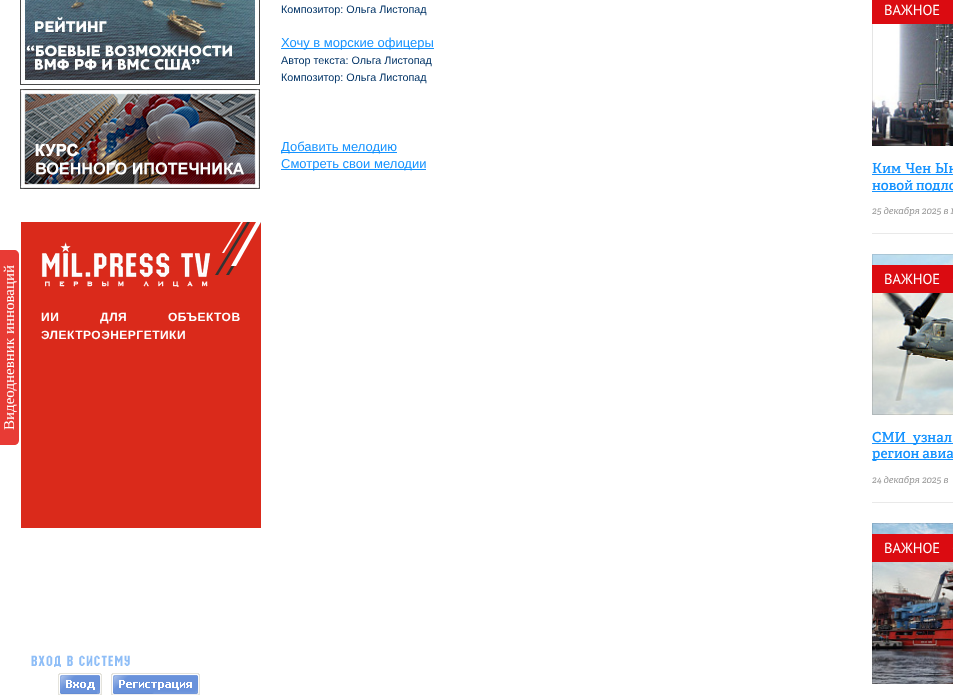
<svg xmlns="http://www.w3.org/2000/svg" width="953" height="695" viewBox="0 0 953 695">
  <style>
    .t1 { font: 15px Liberation Serif; fill: #fff; }
    .t2 { font: 10.8px Liberation Sans; fill: #036; }
    .t3 { font: 13px Liberation Sans; fill: #1492ff; }
    .t4 { font: bold 12px Liberation Sans; letter-spacing: 0.5px; fill: #fff; }
    .t5 { font: 14.5px PT Sans; fill: #fff; }
    .t6 { font: 600 13.75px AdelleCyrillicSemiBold; fill: #1492ff; }
    .t7 { font: italic 9.5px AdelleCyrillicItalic; fill: #999; }
  </style>
  <defs>
    <clipPath id="clip1"><rect x="952" y="0" width="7" height="10"/></clipPath>
    <clipPath id="clip2"><rect x="952" y="10" width="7" height="14"/></clipPath>
    <clipPath id="clip3"><rect x="952" y="265" width="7" height="14"/></clipPath>
    <clipPath id="clip4"><rect x="952" y="279" width="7" height="14"/></clipPath>
    <clipPath id="clip5"><rect x="952" y="534" width="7" height="14"/></clipPath>
    <clipPath id="clip6"><rect x="952" y="548" width="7" height="14"/></clipPath>
  </defs>
  <rect width="100%" height="100%" fill="#fff"/>
  <path d="M0 445V250H14C17 250 19 252 19 255V440C19 443 17 445 14 445Z" fill="#e83b35"/>
  <text x="14" y="430" transform="rotate(-90 14 430)" class="t1">Видеодневник инноваций</text>
  <text x="281" y="13" class="t2">Композитор: Ольга Листопад</text>
  <rect x="281" y="48" width="153" height="1" fill="#1492ff"/>
  <text x="281" y="47" class="t3">Хочу в морские офицеры</text>
  <text x="281" y="64" class="t2">Автор текста: Ольга Листопад</text>
  <text x="281" y="81" class="t2">Композитор: Ольга Листопад</text>
  <rect x="281" y="152" width="116" height="1" fill="#1492ff"/>
  <text x="281" y="151" class="t3">Добавить мелодию</text>
  <rect x="281" y="169" width="145" height="1" fill="#1492ff"/>
  <text x="281" y="168" class="t3">Смотреть свои мелодии</text>
  <image x="20" y="0" width="240" height="85" href="images/1.png"/>
  <image x="20" y="89" width="240" height="100" href="images/2.png"/>
  <rect x="21" y="222" width="240" height="306" fill="#da2a1b"/>
  <image x="215" y="222" width="46" height="53" href="images/3.png"/>
  <image x="41" y="242" width="170" height="45" href="images/4.png"/>
  <text x="41" y="321" word-spacing="37" class="t4">ИИ ДЛЯ ОБЪЕКТОВ</text>
  <text x="41" y="339" class="t4">ЭЛЕКТРОЭНЕРГЕТИКИ</text>
  <image x="31" y="655" width="99" height="12" href="images/5.png"/>
  <image x="58" y="673" width="44" height="22" href="images/6.png"/>
  <image x="111" y="673" width="89" height="22" href="images/7.png"/>
  <rect x="872" y="233" width="81" height="1" fill="#e9e9e9"/>
  <image x="872" y="9" width="81" height="137" href="images/8.png"/>
  <rect x="872.5" y="-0.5" width="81" height="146" fill="none" stroke="#0000001a"/>
  <rect x="872" y="0" width="80" height="24" fill="#db0b11"/>
  <text x="884" y="15" class="t5">ВАЖНОЕ</text>
  <g clip-path="url(#clip1)">
    <path d="M945-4H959L952 12Z" fill="#db0b11"/>
  </g>
  <g clip-path="url(#clip2)">
    <path d="M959 24H945L952 8Z" fill="#db0b11"/>
  </g>
  <text x="872" y="173" word-spacing="1" class="t6">Ким Чен Ын</text>
  <rect x="872" y="174" width="81" height="1" fill="#1492ff"/>
  <rect x="872" y="191" width="81" height="1" fill="#1492ff"/>
  <text x="872" y="190" class="t6">новой подло</text>
  <text x="872" y="214" class="t7">25 декабря 2025 в 1</text>
  <rect x="872" y="502" width="81" height="1" fill="#e9e9e9"/>
  <image x="872" y="254" width="81" height="161" href="images/9.png"/>
  <rect x="872.5" y="254.5" width="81" height="160" fill="none" stroke="#0000001a"/>
  <rect x="872" y="265" width="80" height="28" fill="#db0b11"/>
  <text x="884" y="284" class="t5">ВАЖНОЕ</text>
  <g clip-path="url(#clip3)">
    <path d="M945 265H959L952 281Z" fill="#db0b11"/>
  </g>
  <g clip-path="url(#clip4)">
    <path d="M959 293H945L952 277Z" fill="#db0b11"/>
  </g>
  <rect x="872" y="443" width="81" height="1" fill="#1492ff"/>
  <text x="872" y="442" word-spacing="4" class="t6">СМИ узнал</text>
  <rect x="872" y="459" width="81" height="1" fill="#1492ff"/>
  <text x="872" y="458" class="t6">регион авиа</text>
  <text x="872" y="483" class="t7">24 декабря 2025 в</text>
  <image x="872" y="523" width="81" height="161" href="images/10.png"/>
  <rect x="872.5" y="523.5" width="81" height="160" fill="none" stroke="#0000001a"/>
  <rect x="872" y="534" width="80" height="28" fill="#db0b11"/>
  <text x="884" y="553" class="t5">ВАЖНОЕ</text>
  <g clip-path="url(#clip5)">
    <path d="M945 534H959L952 550Z" fill="#db0b11"/>
  </g>
  <g clip-path="url(#clip6)">
    <path d="M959 562H945L952 546Z" fill="#db0b11"/>
  </g>
</svg>
